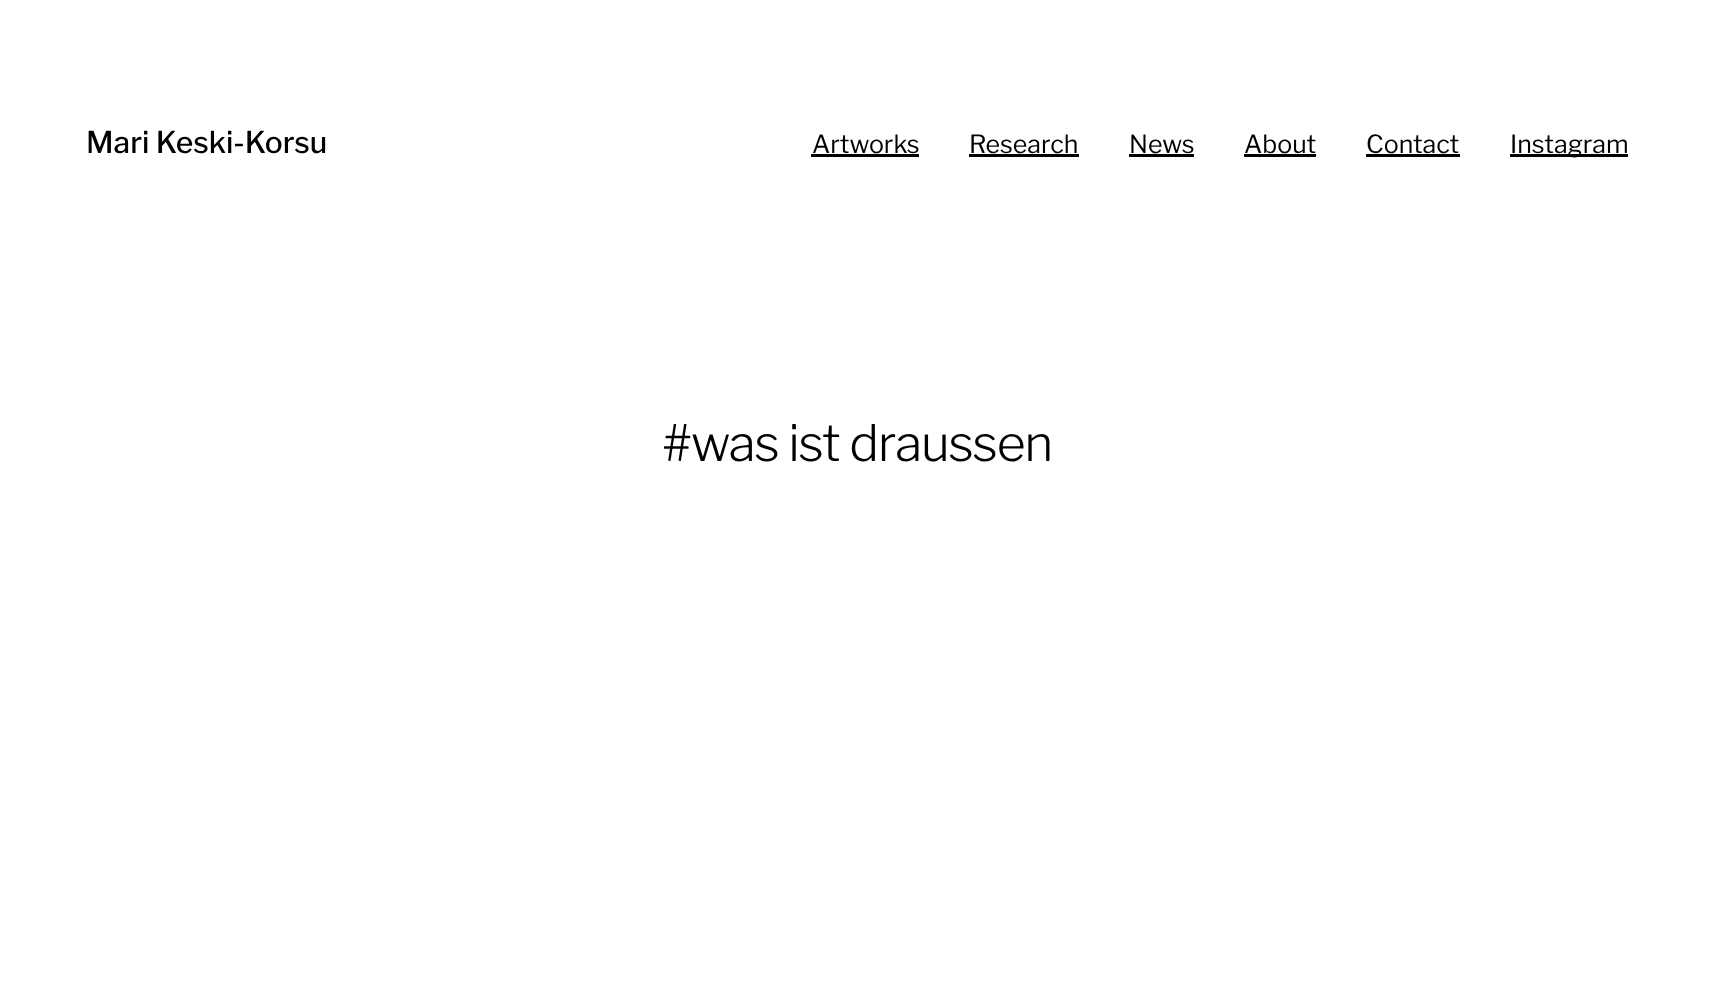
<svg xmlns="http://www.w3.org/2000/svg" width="1713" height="995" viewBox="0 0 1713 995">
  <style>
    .t1 { font: 100 30px 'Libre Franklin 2'; fill: #000; }
    .t2 { font: 100 25px 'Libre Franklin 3'; fill: #000; }
    .t3 { font: 100 50px Libre Franklin; letter-spacing: -1.25px; fill: #000; }
  </style>
  <rect width="100%" height="100%" fill="#fff"/>
  <text x="86" y="153" class="t1">Mari Keski-Korsu</text>
  <text x="812" y="153" class="t2">Artworks</text>
  <rect x="811" y="154" width="108" height="3" fill="#000"/>
  <text x="969" y="153" class="t2">Research</text>
  <rect x="969" y="154" width="110" height="3" fill="#000"/>
  <text x="1129" y="153" class="t2">News</text>
  <rect x="1129" y="154" width="65" height="3" fill="#000"/>
  <text x="1244" y="153" class="t2">About</text>
  <rect x="1244" y="154" width="72" height="3" fill="#000"/>
  <text x="1366" y="153" class="t2">Contact</text>
  <rect x="1366" y="154" width="94" height="3" fill="#000"/>
  <rect x="1510" y="154" width="118" height="3" fill="#000"/>
  <text x="1510" y="153" class="t2">Instagram</text>
  <text x="662" y="461" class="t3">#was ist draussen</text>
</svg>
